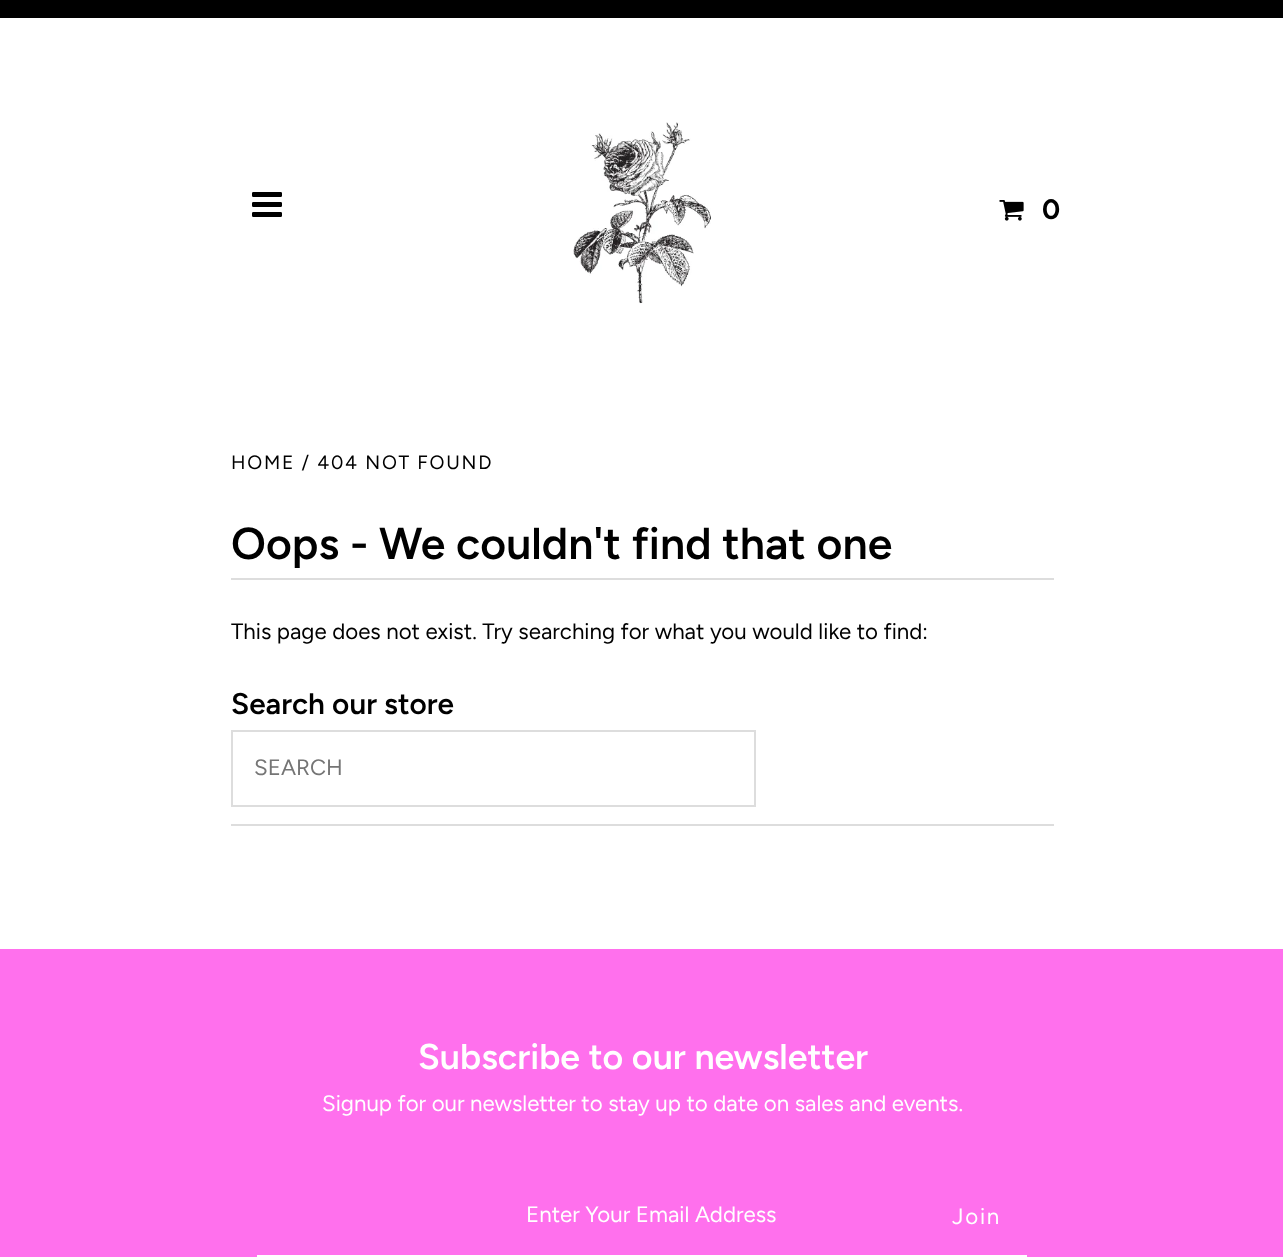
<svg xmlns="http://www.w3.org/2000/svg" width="1283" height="1257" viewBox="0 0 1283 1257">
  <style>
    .t1 { font: bold 28px Figtree; letter-spacing: 1.75px; fill: #000; }
    .t2 { font: 19.25px Figtree; letter-spacing: 1.75px; fill: #000; }
    .t3 { font: 600 44.6px Figtree; fill: #000; }
    .t4 { font: 22.3px Figtree; fill: #000; }
    .t5 { font: 600 29.75px Figtree; fill: #000; }
    .t6 { font: 22.3px Figtree; fill: #757575; }
    .t7 { font: 600 35.75px Figtree; fill: #fff; }
    .t8 { font: 22.3px Figtree; fill: #fff; }
    .t9 { font: 22.3px Figtree; letter-spacing: 1.75px; fill: #fff; }
  </style>
  <rect width="100%" height="100%" fill="#fff"/>
  <rect x="0" y="0" width="1283" height="18" fill="#000"/>
  <image x="252" y="192" width="30" height="25" href="images/1.png"/>
  <image x="573" y="122" width="138" height="182" href="images/2.png"/>
  <image x="999" y="200" width="25" height="21" href="images/3.png"/>
  <text x="1042" y="219" class="t1">0</text>
  <text x="231" y="469" class="t2">HOME / 404 NOT FOUND</text>
  <rect x="231" y="578" width="823" height="2" fill="#ddd"/>
  <text x="231" y="559" class="t3">Oops - We couldn't find that one</text>
  <text x="231" y="639" class="t4">This page does not exist. Try searching for what you would like to find:</text>
  <rect x="231" y="824" width="823" height="2" fill="#ddd"/>
  <text x="231" y="714" class="t5">Search our store</text>
  <rect x="232" y="731" width="523" height="75" fill="none" stroke="#ddd" stroke-width="2"/>
  <text x="254" y="775" class="t6">SEARCH</text>
  <rect x="0" y="949" width="1283" height="308" fill="#ff70ed"/>
  <text x="418" y="1069" class="t7">Subscribe to our newsletter</text>
  <text x="322" y="1111" class="t8">Signup for our newsletter to stay up to date on sales and events.</text>
  <rect x="257" y="1255" width="770" height="2" fill="#fff"/>
  <text x="526" y="1222" class="t8">Enter Your Email Address</text>
  <text x="952" y="1224" class="t9">Join</text>
</svg>
